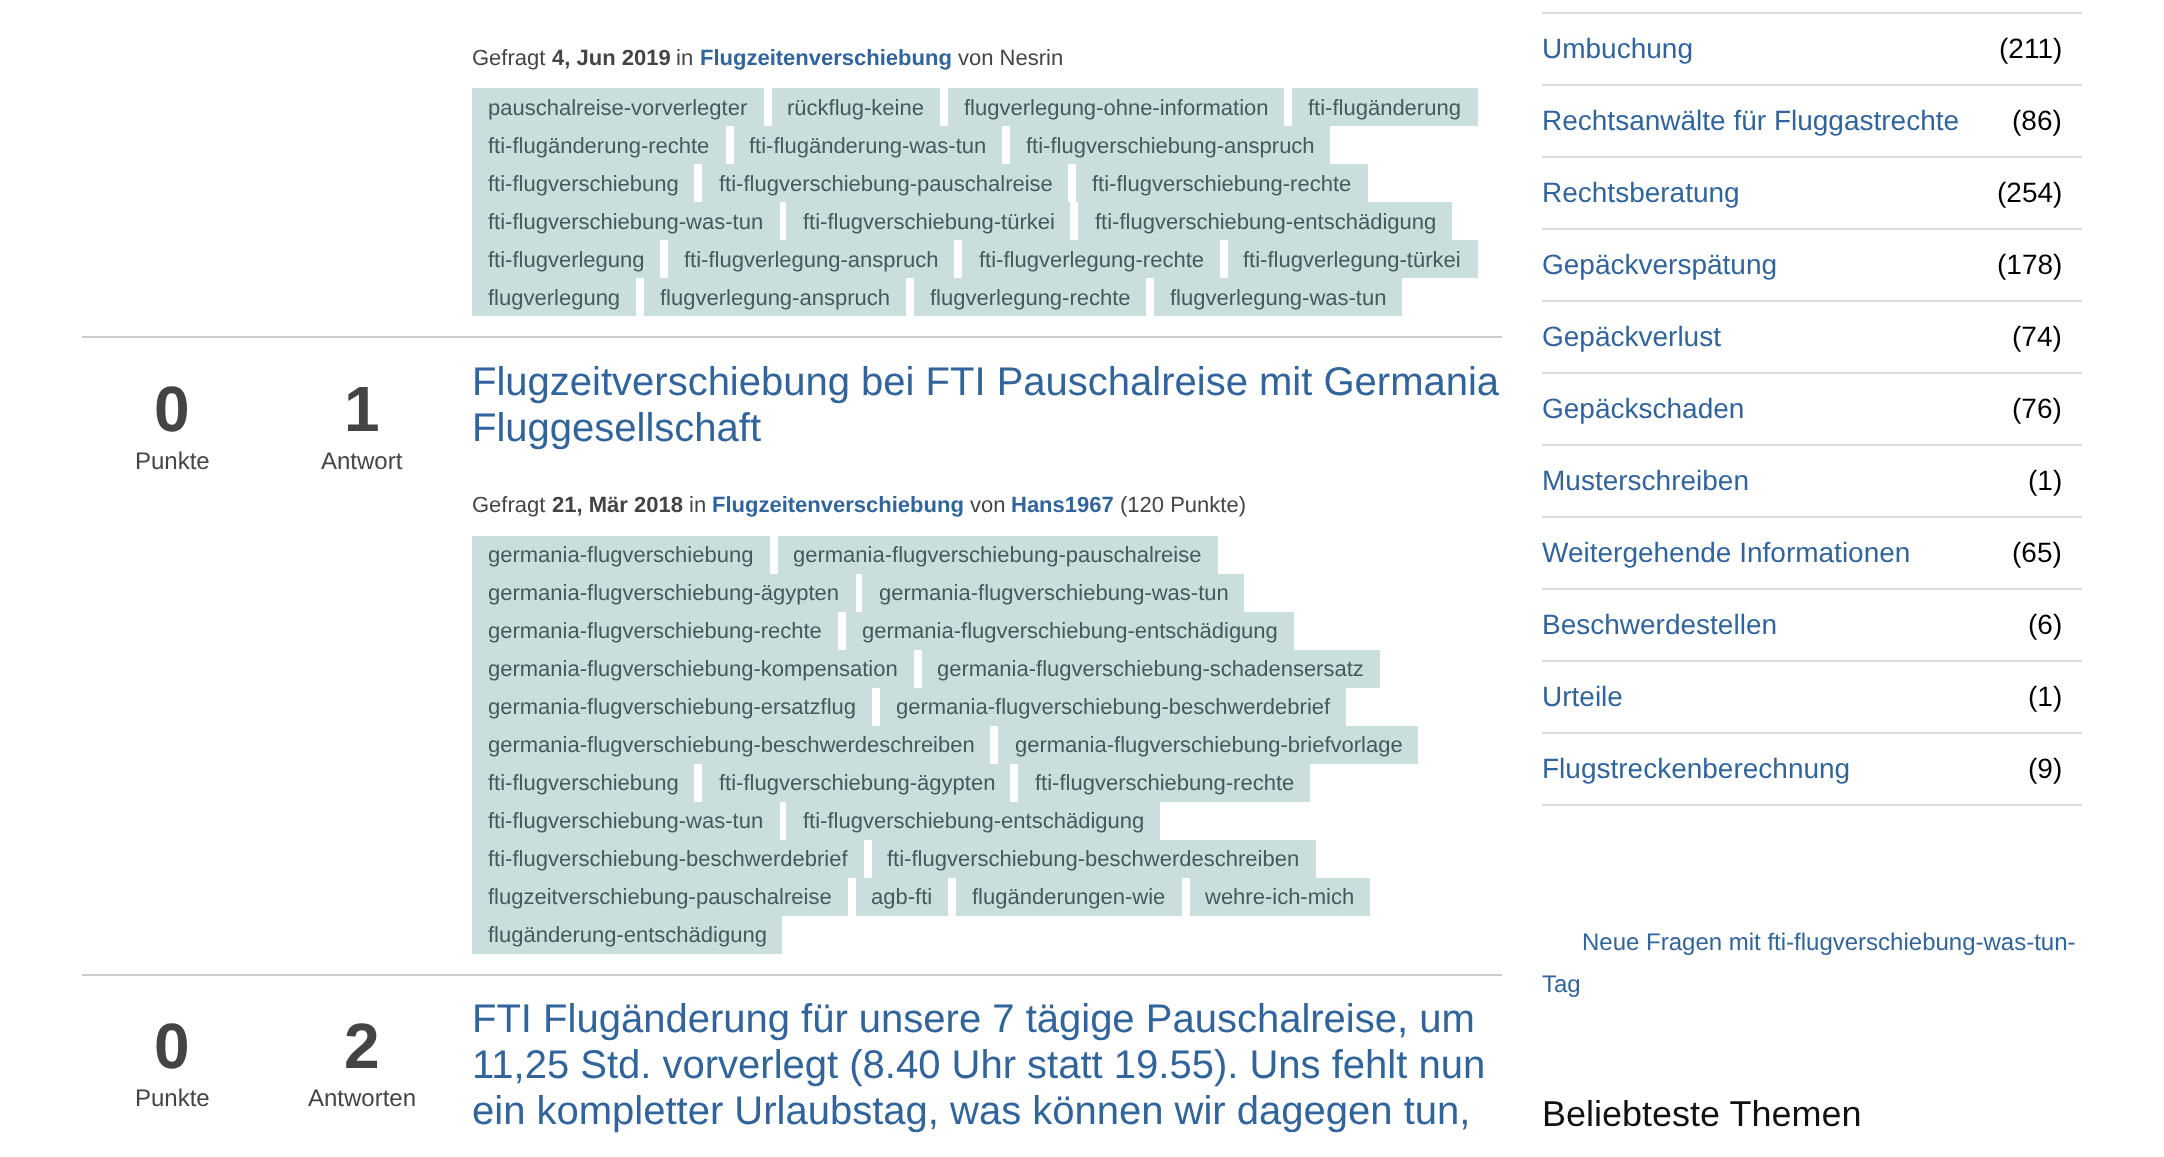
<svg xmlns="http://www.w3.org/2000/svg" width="2164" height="1157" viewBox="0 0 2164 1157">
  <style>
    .t1 { font: 22px Liberation Sans; fill: #444; }
    .t2 { font: bold 22px Liberation Sans; fill: #444; }
    .t3 { font: bold 22px Liberation Sans; fill: #32649c; }
    .t4 { font: 22px Liberation Sans; fill: #435a5a; }
    .t5 { font: bold 64px Liberation Sans; fill: #444; }
    .t6 { font: 24px Liberation Sans; fill: #444; }
    .t7 { font: 40px Liberation Sans; fill: #32649c; }
    .t8 { font: 28px Liberation Sans; fill: #32649c; }
    .t9 { font: 28px Liberation Sans; fill: #000; }
    .t10 { font: 24px Liberation Sans; fill: #32649c; }
    .t11 { font: 36px Liberation Sans; fill: #111; }
  </style>
  <rect width="100%" height="100%" fill="#fff"/>
  <rect x="82" y="336" width="1420" height="2" fill="#ccc"/>
  <text x="472" y="65" class="t1">Gefragt</text>
  <text x="552" y="65" class="t2">4, Jun 2019</text>
  <text x="676" y="65" class="t1">in</text>
  <text x="700" y="65" class="t3">Flugzeitenverschiebung</text>
  <text x="958" y="65" class="t1">von Nesrin</text>
  <rect x="472" y="88" width="292" height="38" fill="#cadede"/>
  <text x="488" y="115" class="t4">pauschalreise-vorverlegter</text>
  <rect x="772" y="88" width="168" height="38" fill="#cadede"/>
  <text x="787" y="115" class="t4">rückflug-keine</text>
  <rect x="948" y="88" width="336" height="38" fill="#cadede"/>
  <text x="964" y="115" class="t4">flugverlegung-ohne-information</text>
  <rect x="1292" y="88" width="186" height="38" fill="#cadede"/>
  <text x="1308" y="115" class="t4">fti-flugänderung</text>
  <rect x="472" y="126" width="254" height="38" fill="#cadede"/>
  <text x="488" y="153" class="t4">fti-flugänderung-rechte</text>
  <rect x="734" y="126" width="268" height="38" fill="#cadede"/>
  <text x="749" y="153" class="t4">fti-flugänderung-was-tun</text>
  <rect x="1010" y="126" width="320" height="38" fill="#cadede"/>
  <text x="1026" y="153" class="t4">fti-flugverschiebung-anspruch</text>
  <rect x="472" y="164" width="222" height="38" fill="#cadede"/>
  <text x="488" y="191" class="t4">fti-flugverschiebung</text>
  <rect x="702" y="164" width="366" height="38" fill="#cadede"/>
  <text x="719" y="191" class="t4">fti-flugverschiebung-pauschalreise</text>
  <rect x="1076" y="164" width="292" height="38" fill="#cadede"/>
  <text x="1092" y="191" class="t4">fti-flugverschiebung-rechte</text>
  <rect x="472" y="202" width="308" height="38" fill="#cadede"/>
  <text x="488" y="229" class="t4">fti-flugverschiebung-was-tun</text>
  <rect x="786" y="202" width="284" height="38" fill="#cadede"/>
  <text x="803" y="229" class="t4">fti-flugverschiebung-türkei</text>
  <rect x="1078" y="202" width="374" height="38" fill="#cadede"/>
  <text x="1095" y="229" class="t4">fti-flugverschiebung-entschädigung</text>
  <rect x="472" y="240" width="188" height="38" fill="#cadede"/>
  <text x="488" y="267" class="t4">fti-flugverlegung</text>
  <rect x="668" y="240" width="286" height="38" fill="#cadede"/>
  <text x="684" y="267" class="t4">fti-flugverlegung-anspruch</text>
  <rect x="962" y="240" width="258" height="38" fill="#cadede"/>
  <text x="979" y="267" class="t4">fti-flugverlegung-rechte</text>
  <rect x="1228" y="240" width="250" height="38" fill="#cadede"/>
  <text x="1243" y="267" class="t4">fti-flugverlegung-türkei</text>
  <rect x="472" y="278" width="164" height="38" fill="#cadede"/>
  <text x="488" y="305" class="t4">flugverlegung</text>
  <rect x="644" y="278" width="262" height="38" fill="#cadede"/>
  <text x="660" y="305" class="t4">flugverlegung-anspruch</text>
  <rect x="914" y="278" width="232" height="38" fill="#cadede"/>
  <text x="930" y="305" class="t4">flugverlegung-rechte</text>
  <rect x="1154" y="278" width="248" height="38" fill="#cadede"/>
  <text x="1170" y="305" class="t4">flugverlegung-was-tun</text>
  <rect x="82" y="974" width="1420" height="2" fill="#ccc"/>
  <text x="154" y="431" class="t5">0</text>
  <text x="135" y="469" class="t6">Punkte</text>
  <text x="344" y="431" class="t5">1</text>
  <text x="321" y="469" class="t6">Antwort</text>
  <text x="472" y="395" class="t7">Flugzeitverschiebung bei FTI Pauschalreise mit Germania</text>
  <text x="472" y="441" class="t7">Fluggesellschaft</text>
  <text x="472" y="512" class="t1">Gefragt</text>
  <text x="552" y="512" class="t2">21, Mär 2018</text>
  <text x="689" y="512" class="t1">in</text>
  <text x="712" y="512" class="t3">Flugzeitenverschiebung</text>
  <text x="970" y="512" class="t1">von</text>
  <text x="1011" y="512" class="t3">Hans1967</text>
  <text x="1120" y="512" class="t1">(120 Punkte)</text>
  <rect x="472" y="536" width="298" height="38" fill="#cadede"/>
  <text x="488" y="562" class="t4">germania-flugverschiebung</text>
  <rect x="778" y="536" width="440" height="38" fill="#cadede"/>
  <text x="793" y="562" class="t4">germania-flugverschiebung-pauschalreise</text>
  <rect x="472" y="574" width="384" height="38" fill="#cadede"/>
  <text x="488" y="600" class="t4">germania-flugverschiebung-ägypten</text>
  <rect x="862" y="574" width="382" height="38" fill="#cadede"/>
  <text x="879" y="600" class="t4">germania-flugverschiebung-was-tun</text>
  <rect x="472" y="612" width="366" height="38" fill="#cadede"/>
  <text x="488" y="638" class="t4">germania-flugverschiebung-rechte</text>
  <rect x="846" y="612" width="448" height="38" fill="#cadede"/>
  <text x="862" y="638" class="t4">germania-flugverschiebung-entschädigung</text>
  <rect x="472" y="650" width="442" height="38" fill="#cadede"/>
  <text x="488" y="676" class="t4">germania-flugverschiebung-kompensation</text>
  <rect x="922" y="650" width="458" height="38" fill="#cadede"/>
  <text x="937" y="676" class="t4">germania-flugverschiebung-schadensersatz</text>
  <rect x="472" y="688" width="400" height="38" fill="#cadede"/>
  <text x="488" y="714" class="t4">germania-flugverschiebung-ersatzflug</text>
  <rect x="880" y="688" width="466" height="38" fill="#cadede"/>
  <text x="896" y="714" class="t4">germania-flugverschiebung-beschwerdebrief</text>
  <rect x="472" y="726" width="518" height="38" fill="#cadede"/>
  <text x="488" y="752" class="t4">germania-flugverschiebung-beschwerdeschreiben</text>
  <rect x="998" y="726" width="420" height="38" fill="#cadede"/>
  <text x="1015" y="752" class="t4">germania-flugverschiebung-briefvorlage</text>
  <rect x="472" y="764" width="222" height="38" fill="#cadede"/>
  <text x="488" y="790" class="t4">fti-flugverschiebung</text>
  <rect x="702" y="764" width="308" height="38" fill="#cadede"/>
  <text x="719" y="790" class="t4">fti-flugverschiebung-ägypten</text>
  <rect x="1018" y="764" width="292" height="38" fill="#cadede"/>
  <text x="1035" y="790" class="t4">fti-flugverschiebung-rechte</text>
  <rect x="472" y="802" width="308" height="38" fill="#cadede"/>
  <text x="488" y="828" class="t4">fti-flugverschiebung-was-tun</text>
  <rect x="786" y="802" width="374" height="38" fill="#cadede"/>
  <text x="803" y="828" class="t4">fti-flugverschiebung-entschädigung</text>
  <rect x="472" y="840" width="392" height="38" fill="#cadede"/>
  <text x="488" y="866" class="t4">fti-flugverschiebung-beschwerdebrief</text>
  <rect x="872" y="840" width="444" height="38" fill="#cadede"/>
  <text x="887" y="866" class="t4">fti-flugverschiebung-beschwerdeschreiben</text>
  <rect x="472" y="878" width="376" height="38" fill="#cadede"/>
  <text x="488" y="904" class="t4">flugzeitverschiebung-pauschalreise</text>
  <rect x="856" y="878" width="92" height="38" fill="#cadede"/>
  <text x="871" y="904" class="t4">agb-fti</text>
  <rect x="956" y="878" width="226" height="38" fill="#cadede"/>
  <text x="972" y="904" class="t4">flugänderungen-wie</text>
  <rect x="1190" y="878" width="180" height="38" fill="#cadede"/>
  <text x="1205" y="904" class="t4">wehre-ich-mich</text>
  <rect x="472" y="916" width="310" height="38" fill="#cadede"/>
  <text x="488" y="942" class="t4">flugänderung-entschädigung</text>
  <text x="154" y="1068" class="t5">0</text>
  <text x="135" y="1106" class="t6">Punkte</text>
  <text x="344" y="1068" class="t5">2</text>
  <text x="308" y="1106" class="t6">Antworten</text>
  <text x="472" y="1032" class="t7">FTI Flugänderung für unsere 7 tägige Pauschalreise, um</text>
  <text x="472" y="1078" class="t7">11,25 Std. vorverlegt (8.40 Uhr statt 19.55). Uns fehlt nun</text>
  <text x="472" y="1124" class="t7">ein kompletter Urlaubstag, was können wir dagegen tun,</text>
  <rect x="1542" y="12" width="540" height="2" fill="#ddd"/>
  <rect x="1542" y="84" width="540" height="2" fill="#ddd"/>
  <text x="1542" y="58" class="t8">Umbuchung</text>
  <text x="1999" y="58" class="t9">(211)</text>
  <rect x="1542" y="156" width="540" height="2" fill="#ddd"/>
  <text x="1542" y="130" class="t8">Rechtsanwälte für Fluggastrechte</text>
  <text x="2012" y="130" class="t9">(86)</text>
  <rect x="1542" y="228" width="540" height="2" fill="#ddd"/>
  <text x="1542" y="202" class="t8">Rechtsberatung</text>
  <text x="1997" y="202" class="t9">(254)</text>
  <rect x="1542" y="300" width="540" height="2" fill="#ddd"/>
  <text x="1542" y="274" class="t8">Gepäckverspätung</text>
  <text x="1997" y="274" class="t9">(178)</text>
  <rect x="1542" y="372" width="540" height="2" fill="#ddd"/>
  <text x="1542" y="346" class="t8">Gepäckverlust</text>
  <text x="2012" y="346" class="t9">(74)</text>
  <rect x="1542" y="444" width="540" height="2" fill="#ddd"/>
  <text x="1542" y="418" class="t8">Gepäckschaden</text>
  <text x="2012" y="418" class="t9">(76)</text>
  <rect x="1542" y="516" width="540" height="2" fill="#ddd"/>
  <text x="1542" y="490" class="t8">Musterschreiben</text>
  <text x="2028" y="490" class="t9">(1)</text>
  <rect x="1542" y="588" width="540" height="2" fill="#ddd"/>
  <text x="1542" y="562" class="t8">Weitergehende Informationen</text>
  <text x="2012" y="562" class="t9">(65)</text>
  <rect x="1542" y="660" width="540" height="2" fill="#ddd"/>
  <text x="1542" y="634" class="t8">Beschwerdestellen</text>
  <text x="2028" y="634" class="t9">(6)</text>
  <rect x="1542" y="732" width="540" height="2" fill="#ddd"/>
  <text x="1542" y="706" class="t8">Urteile</text>
  <text x="2028" y="706" class="t9">(1)</text>
  <rect x="1542" y="804" width="540" height="2" fill="#ddd"/>
  <text x="1542" y="778" class="t8">Flugstreckenberechnung</text>
  <text x="2028" y="778" class="t9">(9)</text>
  <text x="1582" y="950" class="t10">Neue Fragen mit fti-flugverschiebung-was-tun-</text>
  <text x="1542" y="992" class="t10">Tag</text>
  <text x="1542" y="1126" class="t11">Beliebteste Themen</text>
</svg>
